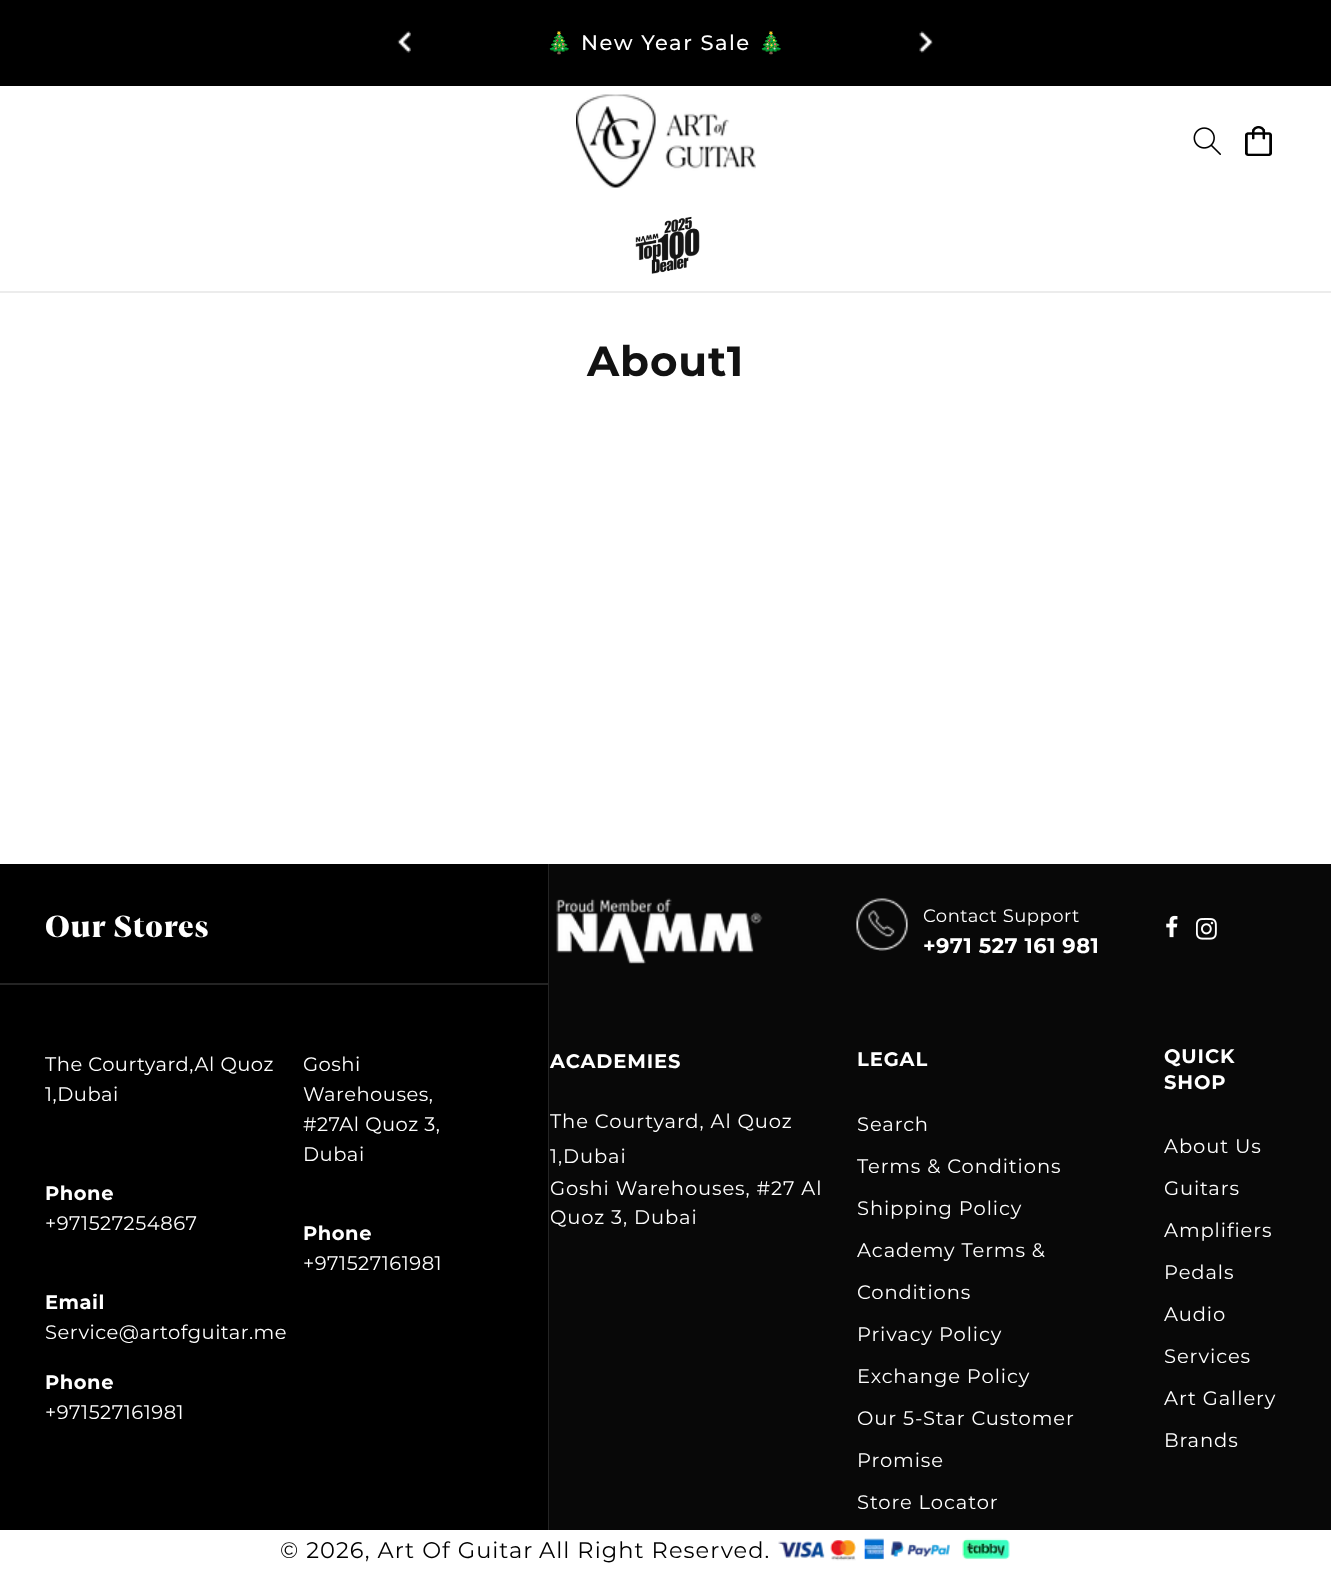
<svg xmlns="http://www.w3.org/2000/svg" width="1331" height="1591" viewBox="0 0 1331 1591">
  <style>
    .t1 { font: 21px Noto Color Emoji; letter-spacing: 1.5px; fill: #fff; }
    .t2 { font: 500 21px Montserrat; letter-spacing: 1.5px; fill: #fff; }
    .t3 { font: bold 42px Montserrat; letter-spacing: 0.9px; fill: #121212; }
    .t4 { font: 900 29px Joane; letter-spacing: 0.9px; fill: #fff; }
    .t5 { font: 19.5px Montserrat; letter-spacing: 0.5px; fill: #fff; }
    .t6 { font: bold 19.5px Montserrat; letter-spacing: 0.5px; fill: #fff; }
    .t7 { font: bold 19.5px Montserrat; letter-spacing: 0.9px; fill: #fff; }
    .t8 { font: 19.5px Montserrat; letter-spacing: 0.9px; fill: #fff; }
    .t9 { font: 18px Montserrat; letter-spacing: 0.5px; fill: #fff; }
    .t10 { font: bold 21px Montserrat; letter-spacing: 0.5px; fill: #fff; }
    .t11 { font: 22.5px Montserrat; letter-spacing: 1.05px; fill: #000; }
  </style>
  <rect width="100%" height="100%" fill="#fff"/>
  <rect x="0" y="0" width="1331" height="86" fill="#000"/>
  <image x="397" y="31" width="14" height="22" href="images/1.png"/>
  <text x="546" y="50" class="t1">🎄</text>
  <text x="581" y="50" class="t2">New Year Sale</text>
  <text x="758" y="50" class="t1">🎄</text>
  <image x="919" y="31" width="14" height="22" href="images/2.png"/>
  <rect x="0" y="291" width="1331" height="2" fill="#ececec"/>
  <image x="576" y="94" width="180" height="94" href="images/3.png"/>
  <image x="1193" y="127" width="28" height="28" href="images/4.png"/>
  <image x="1245" y="126" width="27" height="30" href="images/5.png"/>
  <image x="635" y="216" width="65" height="58" href="images/6.png"/>
  <text x="587" y="376" class="t3">About1</text>
  <rect x="0" y="864" width="548" height="666" fill="#000"/>
  <rect x="548" y="864" width="1" height="666" fill="#242424"/>
  <text x="45" y="937" class="t4">Our Stores</text>
  <rect x="0" y="983" width="548" height="2" fill="#242424"/>
  <text x="45" y="1071" class="t5">The Courtyard,Al Quoz</text>
  <text x="45" y="1101" class="t5">1,Dubai</text>
  <text x="45" y="1200" class="t6">Phone</text>
  <text x="45" y="1230" class="t5">+971527254867</text>
  <text x="45" y="1309" class="t6">Email</text>
  <text x="45" y="1339" class="t5">Service@artofguitar.me</text>
  <text x="45" y="1389" class="t6">Phone</text>
  <text x="45" y="1419" class="t5">+971527161981</text>
  <text x="303" y="1071" class="t5">Goshi</text>
  <text x="303" y="1101" class="t5">Warehouses,</text>
  <text x="303" y="1131" class="t5">#27Al Quoz 3,</text>
  <text x="303" y="1161" class="t5">Dubai</text>
  <text x="303" y="1240" class="t6">Phone</text>
  <text x="303" y="1270" class="t5">+971527161981</text>
  <rect x="549" y="864" width="782" height="666" fill="#080808"/>
  <image x="556" y="898" width="207" height="66" href="images/7.png"/>
  <text x="550" y="1068" class="t7">ACADEMIES</text>
  <text x="550" y="1128" class="t8">The Courtyard, Al Quoz</text>
  <text x="550" y="1163" class="t8">1,Dubai</text>
  <text x="550" y="1195" class="t8">Goshi Warehouses, #27 Al</text>
  <text x="550" y="1224" class="t8">Quoz 3, Dubai</text>
  <image x="856" y="898" width="52" height="53" href="images/8.png"/>
  <text x="923" y="922" class="t9">Contact Support</text>
  <text x="923" y="953" class="t10">+971 527 161 981</text>
  <text x="857" y="1066" class="t7">LEGAL</text>
  <text x="857" y="1131" class="t8">Search</text>
  <text x="857" y="1173" class="t8">Terms &amp; Conditions</text>
  <text x="857" y="1215" class="t8">Shipping Policy</text>
  <text x="857" y="1257" class="t8">Academy Terms &amp;</text>
  <text x="857" y="1299" class="t8">Conditions</text>
  <text x="857" y="1341" class="t8">Privacy Policy</text>
  <text x="857" y="1383" class="t8">Exchange Policy</text>
  <text x="857" y="1425" class="t8">Our 5-Star Customer</text>
  <text x="857" y="1467" class="t8">Promise</text>
  <text x="857" y="1509" class="t8">Store Locator</text>
  <image x="1166" y="915" width="12" height="23" href="images/9.png"/>
  <image x="1196" y="918" width="21" height="22" href="images/10.png"/>
  <text x="1164" y="1063" class="t7">QUICK</text>
  <text x="1164" y="1089" class="t7">SHOP</text>
  <text x="1164" y="1153" class="t8">About Us</text>
  <text x="1164" y="1195" class="t8">Guitars</text>
  <text x="1164" y="1237" class="t8">Amplifiers</text>
  <text x="1164" y="1279" class="t8">Pedals</text>
  <text x="1164" y="1321" class="t8">Audio</text>
  <text x="1164" y="1363" class="t8">Services</text>
  <text x="1164" y="1405" class="t8">Art Gallery</text>
  <text x="1164" y="1447" class="t8">Brands</text>
  <text x="280" y="1558" class="t11">© 2026, Art Of Guitar</text>
  <text x="539" y="1558" class="t11">All Right Reserved.</text>
  <image x="778" y="1538" width="232" height="23" href="images/11.png"/>
</svg>
